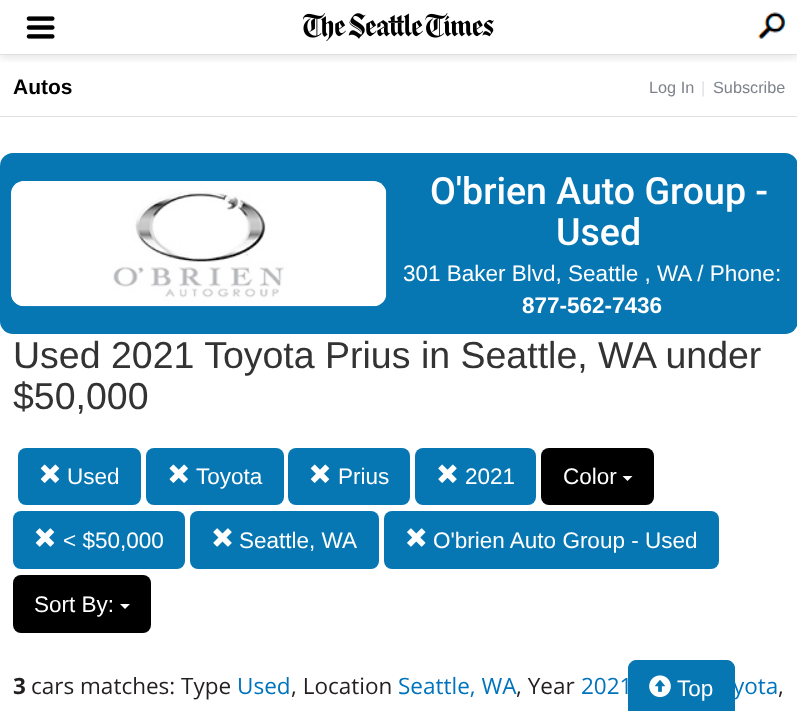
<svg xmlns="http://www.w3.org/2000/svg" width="797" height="711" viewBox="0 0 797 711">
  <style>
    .t1 { font: bold 21px Liberation Sans; fill: #000; }
    .t2 { font: 16.25px Liberation Sans; fill: #7e838b; }
    .t3 { font: 16.25px Liberation Sans; fill: #e0e0e0; }
    .t4 { font: 500 37.5px Roboto; fill: #fff; }
    .t5 { font: 22.5px Liberation Sans; fill: #fff; }
    .t6 { font: bold 22.5px Liberation Sans; fill: #fff; }
    .t7 { font: 37.5px Liberation Sans; fill: #333; }
    .t8 { font: bold 22.5px Open Sans; fill: #231f20; }
    .t9 { font: 22.5px Open Sans; fill: #231f20; }
    .t10 { font: 22.5px Open Sans; fill: #0073bd; }
  </style>
  <defs>
    <clipPath id="clip1"><rect x="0" y="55" width="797" height="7"/></clipPath>
  </defs>
  <rect width="100%" height="100%" fill="#fff"/>
  <g clip-path="url(#clip1)">
    <rect x="0" y="3" width="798" height="55" fill="#0000001a" filter="blur(4.5px)"/>
  </g>
  <rect x="0" y="54" width="797" height="1" fill="#e0e0e0"/>
  <image x="26" y="16" width="29" height="23" href="images/1.png"/>
  <image x="303" y="13" width="191" height="28" href="images/2.png"/>
  <image x="758" y="12" width="27" height="27" href="images/3.png"/>
  <rect x="0" y="116" width="797" height="1" fill="#e0e0e0"/>
  <text x="13" y="94" class="t1">Autos</text>
  <text x="649" y="93" class="t2">Log In</text>
  <text x="701" y="93" class="t3">|</text>
  <text x="713" y="93" class="t2">Subscribe</text>
  <rect x="0" y="153" width="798" height="181" rx="13" fill="#0777b3"/>
  <rect x="11" y="181" width="375" height="125" rx="13" fill="#fff"/>
  <image x="11" y="181" width="376" height="126" href="images/4.png"/>
  <text x="430" y="204" class="t4">O'brien Auto Group -</text>
  <text x="556" y="245" class="t4">Used</text>
  <text x="403" y="281" class="t5">301 Baker Blvd, Seattle , WA / Phone:</text>
  <text x="522" y="313" class="t6">877-562-7436</text>
  <text x="13" y="368" class="t7">Used 2021 Toyota Prius in Seattle, WA under</text>
  <text x="13" y="409" class="t7">$50,000</text>
  <rect x="18" y="448" width="123" height="57" rx="8" fill="#0777b3"/>
  <image x="40" y="464" width="20" height="19" href="images/5.png"/>
  <text x="67" y="484" class="t5">Used</text>
  <rect x="146" y="448" width="138" height="57" rx="8" fill="#0777b3"/>
  <image x="169" y="464" width="19" height="19" href="images/6.png"/>
  <text x="196" y="484" class="t5">Toyota</text>
  <rect x="288" y="448" width="122" height="57" rx="8" fill="#0777b3"/>
  <image x="310" y="464" width="20" height="19" href="images/5.png"/>
  <text x="338" y="484" class="t5">Prius</text>
  <rect x="415" y="448" width="121" height="57" rx="8" fill="#0777b3"/>
  <image x="438" y="464" width="19" height="19" href="images/7.png"/>
  <text x="465" y="484" class="t5">2021</text>
  <rect x="541" y="448" width="113" height="57" rx="8" fill="#000"/>
  <text x="563" y="484" class="t5">Color</text>
  <path d="M622.5 476H632.5L627.5 481Z" fill="#fff"/>
  <rect x="13" y="511" width="172" height="58" rx="8" fill="#0777b3"/>
  <image x="35" y="528" width="20" height="19" href="images/8.png"/>
  <text x="63" y="548" class="t5">&lt; $50,000</text>
  <rect x="190" y="511" width="189" height="58" rx="8" fill="#0777b3"/>
  <image x="213" y="528" width="19" height="19" href="images/9.png"/>
  <text x="239" y="548" class="t5">Seattle, WA</text>
  <rect x="384" y="511" width="335" height="58" rx="8" fill="#0777b3"/>
  <image x="407" y="528" width="19" height="19" href="images/10.png"/>
  <text x="433" y="548" class="t5">O'brien Auto Group - Used</text>
  <rect x="13" y="575" width="138" height="58" rx="8" fill="#000"/>
  <text x="34" y="612" class="t5">Sort By:</text>
  <path d="M120 604H130L125 609Z" fill="#fff"/>
  <text x="13" y="694" class="t8">3</text>
  <text x="31" y="694" class="t9">cars matches: Type</text>
  <text x="237" y="694" class="t10">Used</text>
  <text x="291" y="694" class="t9">, Location</text>
  <text x="398" y="694" class="t10">Seattle, WA</text>
  <text x="516" y="694" class="t9">, Year</text>
  <text x="581" y="694" class="t10">2021</text>
  <text x="733" y="694" class="t10">yota</text>
  <text x="778" y="694" class="t9">,</text>
  <rect x="628.5" y="660.5" width="106" height="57" rx="7.5" fill="#0777b3" stroke="#0777b3"/>
  <image x="649" y="675" width="22" height="23" href="images/11.png"/>
  <text x="677" y="696" class="t5">Top</text>
</svg>
